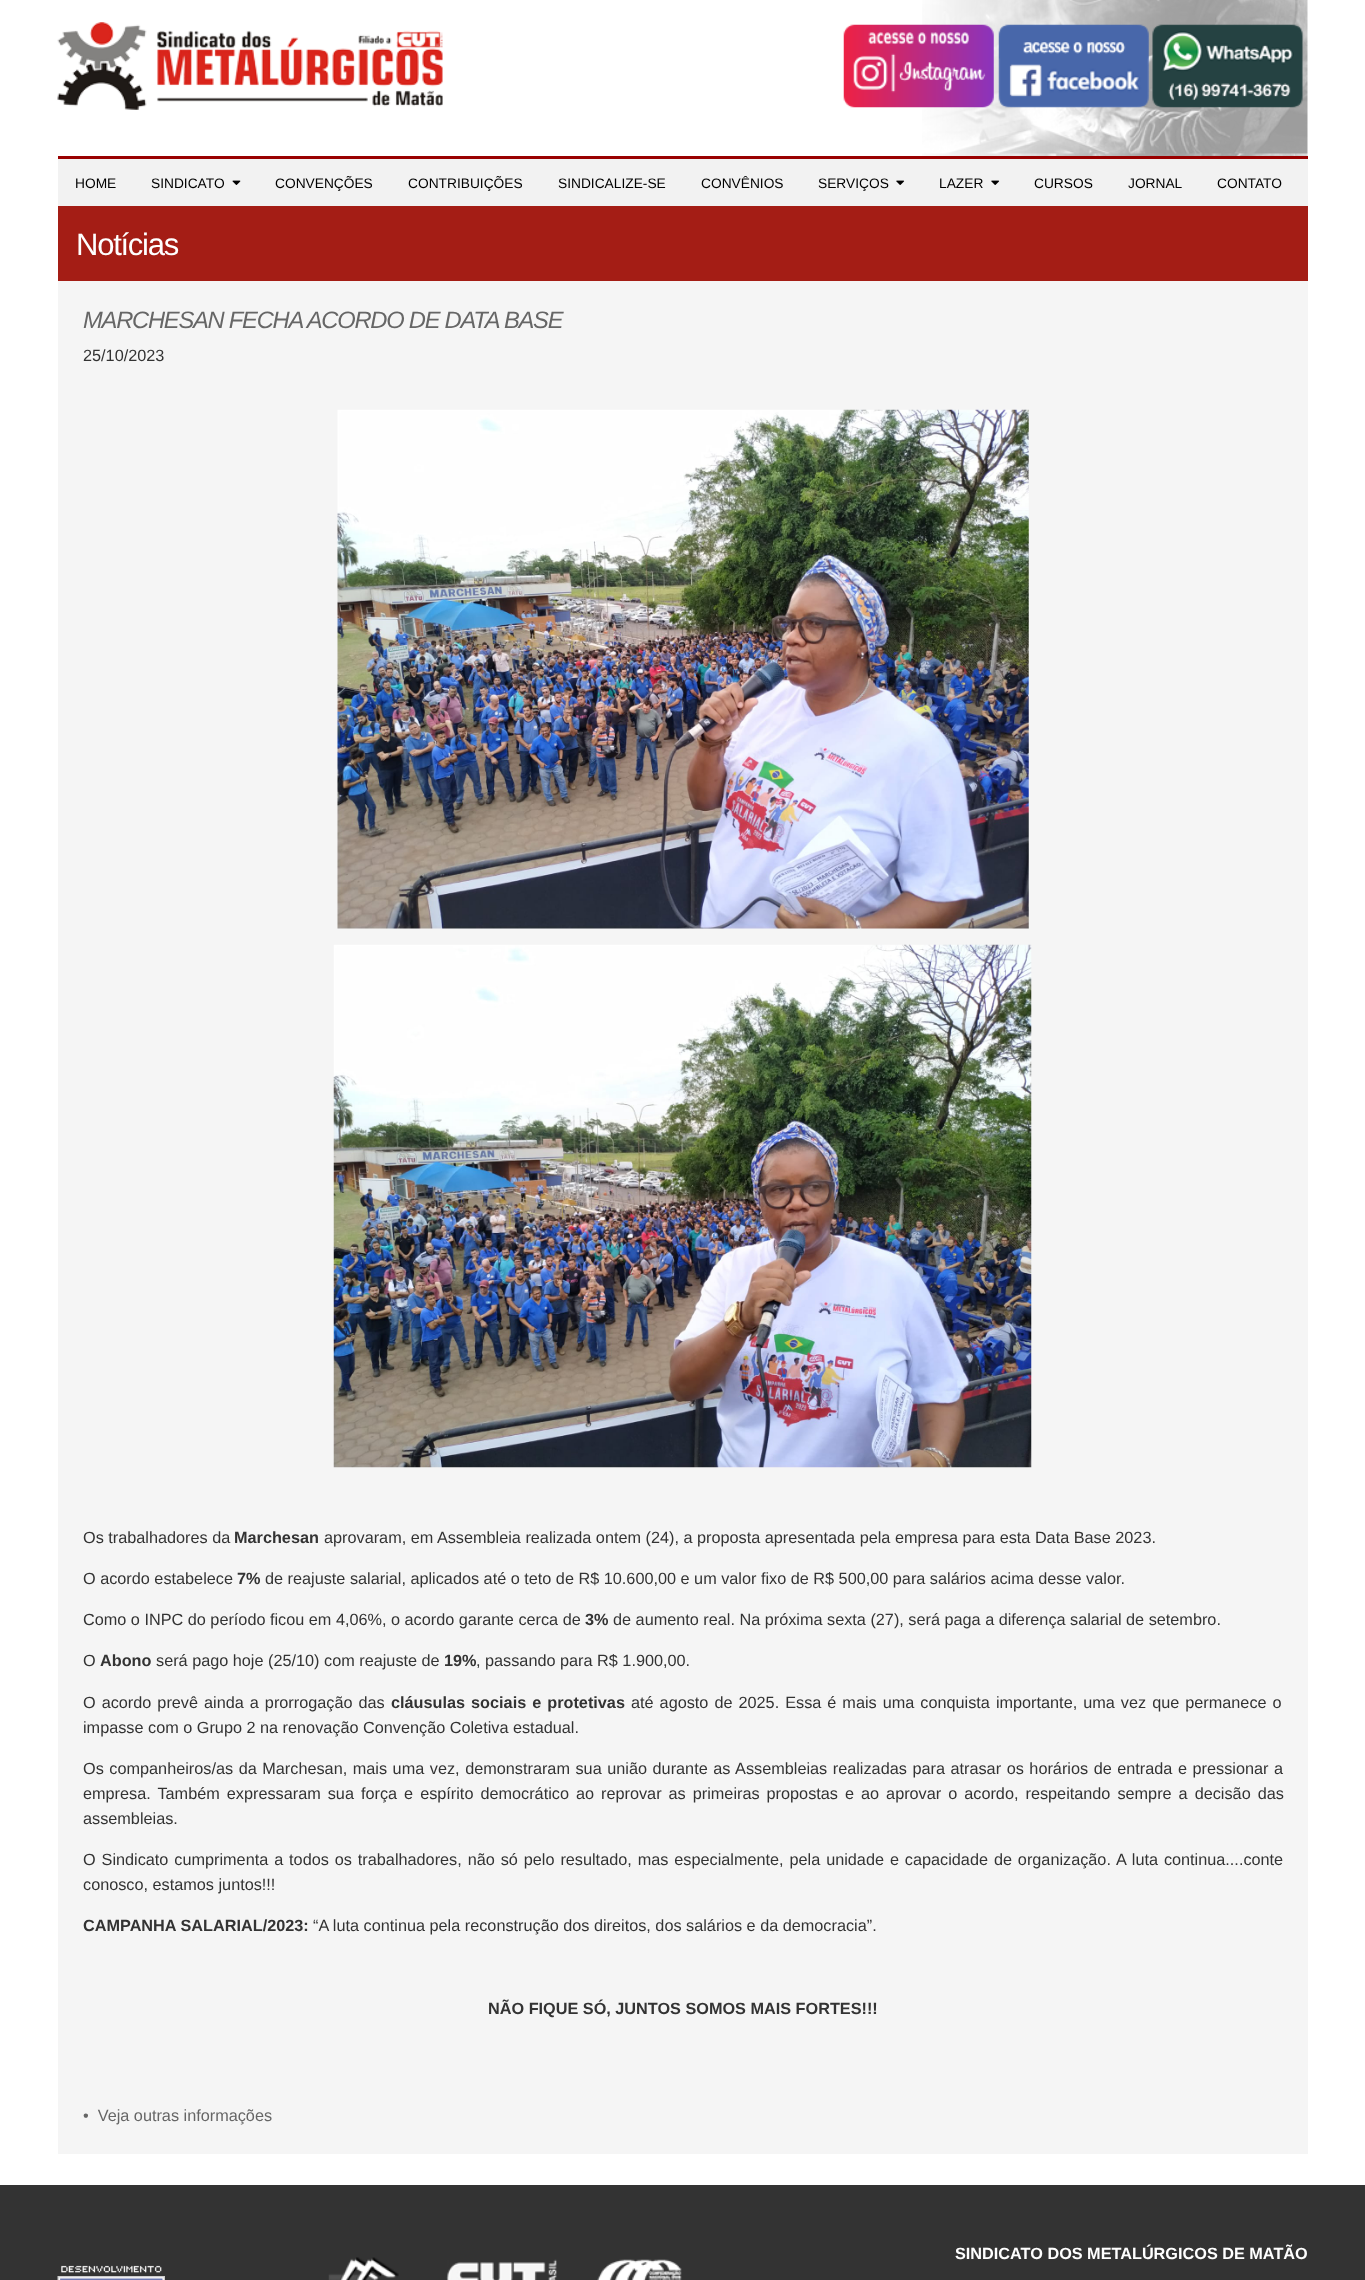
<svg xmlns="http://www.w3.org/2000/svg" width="1365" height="2280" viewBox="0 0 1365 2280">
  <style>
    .t1 { font: 13.75px Liberation Sans; fill: #000; }
    .t2 { font: 31px Liberation Sans; letter-spacing: -1.25px; fill: #fff; }
    .t3 { font: italic 23.75px Liberation Sans; letter-spacing: -1.25px; fill: #666; }
    .t4 { font: 16.25px Liberation Sans; fill: #333; }
    .t5 { font: bold 16.25px Liberation Sans; fill: #333; }
    .t6 { font: 16.25px Liberation Sans; fill: #666; }
    .t7 { font: bold 16.25px Liberation Sans; fill: #fff; }
  </style>
  <rect width="100%" height="100%" fill="#fff"/>
  <image x="57" y="22" width="386" height="88" href="images/1.png"/>
  <image x="922" y="0" width="386" height="156" href="images/2.png"/>
  <image x="843" y="24" width="151" height="84" href="images/3.png"/>
  <image x="998" y="24" width="151" height="84" href="images/4.png"/>
  <image x="1152" y="24" width="151" height="84" href="images/5.png"/>
  <rect x="58" y="159" width="1250" height="47" fill="#f2f2f2"/>
  <rect x="58" y="156" width="1250" height="3" fill="#900"/>
  <text x="75" y="188" class="t1">HOME</text>
  <text x="151" y="188" class="t1">SINDICATO</text>
  <image x="232" y="180" width="9" height="5" href="images/6.png"/>
  <text x="275" y="188" class="t1">CONVENÇÕES</text>
  <text x="408" y="188" class="t1">CONTRIBUIÇÕES</text>
  <text x="558" y="188" class="t1">SINDICALIZE-SE</text>
  <text x="701" y="188" class="t1">CONVÊNIOS</text>
  <text x="818" y="188" class="t1">SERVIÇOS</text>
  <image x="896" y="180" width="9" height="5" href="images/7.png"/>
  <text x="939" y="188" class="t1">LAZER</text>
  <image x="991" y="180" width="9" height="5" href="images/7.png"/>
  <text x="1034" y="188" class="t1">CURSOS</text>
  <text x="1128" y="188" class="t1">JORNAL</text>
  <text x="1217" y="188" class="t1">CONTATO</text>
  <rect x="58" y="281" width="1250" height="1873" fill="#f5f5f5"/>
  <rect x="58" y="206" width="1250" height="75" fill="#a41d15"/>
  <text x="76" y="255" class="t2">Notícias</text>
  <text x="83" y="328" class="t3">MARCHESAN FECHA ACORDO DE DATA BASE</text>
  <text x="83" y="361" class="t4">25/10/2023</text>
  <image x="337" y="409" width="692" height="520" href="images/8.png"/>
  <image x="333" y="944" width="699" height="524" href="images/9.png"/>
  <text x="83" y="1543" class="t4">Os trabalhadores da</text>
  <text x="234" y="1543" class="t5">Marchesan</text>
  <text x="324" y="1543" class="t4">aprovaram, em Assembleia realizada ontem (24), a proposta apresentada pela empresa para esta Data Base 2023.</text>
  <text x="83" y="1584" class="t4">O acordo estabelece</text>
  <text x="237" y="1584" class="t5">7%</text>
  <text x="265" y="1584" class="t4">de reajuste salarial, aplicados até o teto de R$ 10.600,00 e um valor fixo de R$ 500,00 para salários acima desse valor.</text>
  <text x="83" y="1625" class="t4">Como o INPC do período ficou em 4,06%, o acordo garante cerca de</text>
  <text x="585" y="1625" class="t5">3%</text>
  <text x="613" y="1625" class="t4">de aumento real. Na próxima sexta (27), será paga a diferença salarial de setembro.</text>
  <text x="83" y="1666" class="t4">O</text>
  <text x="100" y="1666" class="t5">Abono</text>
  <text x="156" y="1666" class="t4">será pago hoje (25/10) com reajuste de</text>
  <text x="444" y="1666" class="t5">19%</text>
  <text x="476" y="1666" class="t4">, passando para R$ 1.900,00.</text>
  <text x="83" y="1708" word-spacing="1.5" class="t4">O acordo prevê ainda a prorrogação das</text>
  <text x="391" y="1708" word-spacing="1.5" class="t5">cláusulas sociais e protetivas</text>
  <text x="631" y="1708" word-spacing="1.5" class="t4">até agosto de 2025. Essa é mais uma conquista importante, uma vez que permanece o</text>
  <text x="83" y="1733" class="t4">impasse com o Grupo 2 na renovação Convenção Coletiva estadual.</text>
  <text x="83" y="1774" word-spacing="1.05" class="t4">Os companheiros/as da Marchesan, mais uma vez, demonstraram sua união durante as Assembleias realizadas para atrasar os horários de entrada e pressionar a</text>
  <text x="83" y="1799" word-spacing="2.5" class="t4">empresa. Também expressaram sua força e espírito democrático ao reprovar as primeiras propostas e ao aprovar o acordo, respeitando sempre a decisão das</text>
  <text x="83" y="1824" class="t4">assembleias.</text>
  <text x="83" y="1865" word-spacing="1.4" class="t4">O Sindicato cumprimenta a todos os trabalhadores, não só pelo resultado, mas especialmente, pela unidade e capacidade de organização. A luta continua....conte</text>
  <text x="83" y="1890" class="t4">conosco, estamos juntos!!!</text>
  <text x="83" y="1931" class="t5">CAMPANHA SALARIAL/2023:</text>
  <text x="313" y="1931" class="t4">“A luta continua pela reconstrução dos direitos, dos salários e da democracia”.</text>
  <text x="488" y="2014" class="t5">NÃO FIQUE SÓ, JUNTOS SOMOS MAIS FORTES!!!</text>
  <text x="83" y="2121" class="t6" xml:space="preserve">•  Veja outras informações</text>
  <rect x="0" y="2185" width="1365" height="95" fill="#333"/>
  <text x="955" y="2259" class="t7">SINDICATO DOS METALÚRGICOS DE MATÃO</text>
  <image x="61" y="2265" width="101" height="8" href="images/10.png"/>
  <image x="57" y="2276" width="108" height="4" href="images/11.png"/>
  <image x="328" y="2257" width="71" height="23" href="images/12.png"/>
  <image x="446" y="2259" width="111" height="21" href="images/13.png"/>
  <image x="597" y="2259" width="85" height="21" href="images/14.png"/>
</svg>
